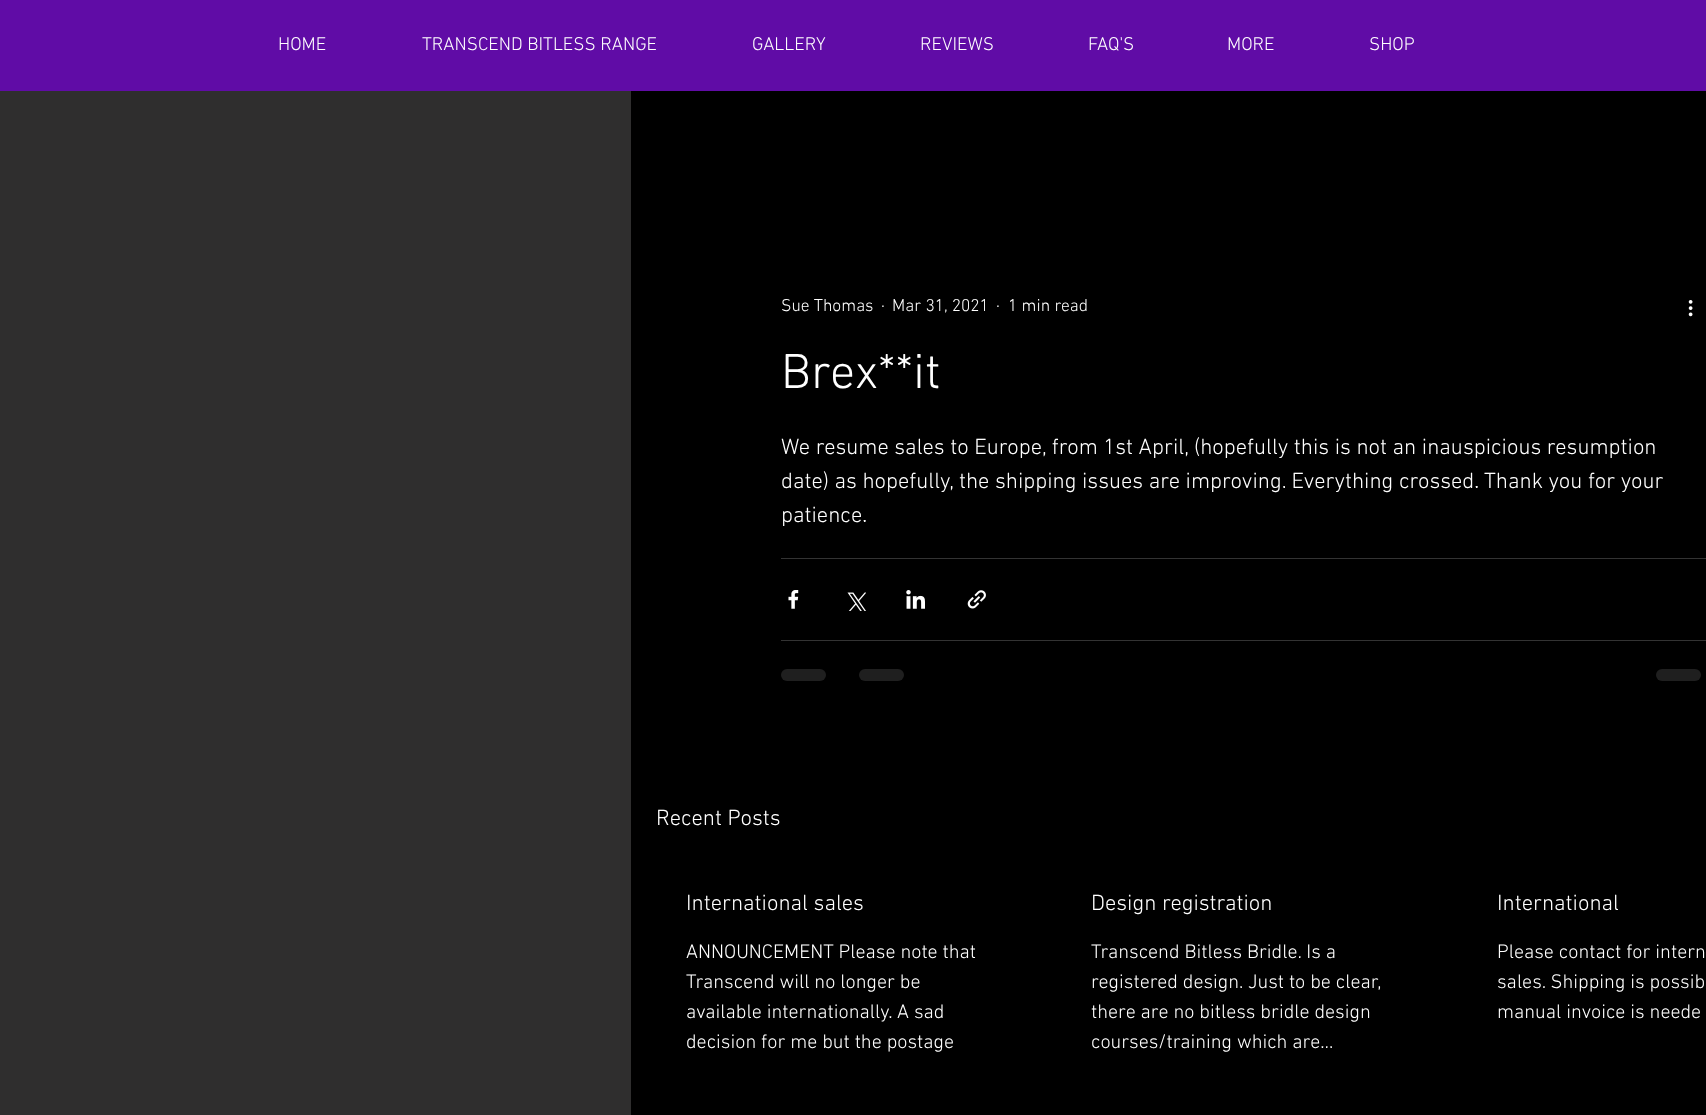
<svg xmlns="http://www.w3.org/2000/svg" width="1706" height="1115" viewBox="0 0 1706 1115">
  <style>
    .t1 { font: 300 18.75px 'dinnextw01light'; fill: #fff; }
    .t2 { font: 300 17.5px 'dinnextw01light'; fill: #fff; }
    .t3 { font: 300 50px 'dinnextw01light'; fill: #fff; }
    .t4 { font: 300 22.5px 'dinnextw01light'; fill: #fff; }
    .t5 { font: 300 20px 'dinnextw01light'; fill: #fff; }
  </style>
  <rect width="100%" height="100%" fill="#2f2e2e"/>
  <rect x="0" y="0" width="1706" height="91" fill="#600ca6"/>
  <text x="278" y="50" class="t1">HOME</text>
  <text x="422" y="50" class="t1">TRANSCEND BITLESS RANGE</text>
  <text x="752" y="50" class="t1">GALLERY</text>
  <text x="920" y="50" class="t1">REVIEWS</text>
  <text x="1088" y="50" class="t1">FAQ'S</text>
  <text x="1227" y="50" class="t1">MORE</text>
  <text x="1369" y="50" class="t1">SHOP</text>
  <rect x="631" y="91" width="1075" height="1024" fill="#000"/>
  <text x="781" y="311" class="t2">Sue Thomas</text>
  <text x="881" y="311" class="t2">·</text>
  <text x="892" y="311" class="t2">Mar 31, 2021</text>
  <text x="996" y="311" class="t2">·</text>
  <text x="1008" y="311" class="t2">1 min read</text>
  <image x="1688" y="300" width="5" height="17" href="images/1.png"/>
  <text x="781" y="388" class="t3">Brex**it</text>
  <text x="781" y="454" class="t4">We resume sales to Europe, from 1st April, (hopefully this is not an inauspicious resumption</text>
  <text x="781" y="488" class="t4">date) as hopefully, the shipping issues are improving. Everything crossed. Thank you for your</text>
  <text x="781" y="522" class="t4">patience.</text>
  <rect x="781" y="558" width="925" height="1" fill="#333"/>
  <image x="788" y="590" width="11" height="19" href="images/2.png"/>
  <image x="847" y="592" width="19" height="19" href="images/3.png"/>
  <image x="906" y="590" width="19" height="19" href="images/4.png"/>
  <image x="967" y="590" width="19" height="19" href="images/5.png"/>
  <rect x="781" y="640" width="925" height="1" fill="#333"/>
  <rect x="781" y="669" width="45" height="12" rx="6" fill="#1f1f1f"/>
  <rect x="859" y="669" width="45" height="12" rx="6" fill="#1f1f1f"/>
  <rect x="1656" y="669" width="45" height="12" rx="6" fill="#1f1f1f"/>
  <text x="656" y="825" class="t4">Recent Posts</text>
  <text x="686" y="910" class="t4">International sales</text>
  <text x="686" y="958" class="t5">ANNOUNCEMENT Please note that</text>
  <text x="686" y="988" class="t5">Transcend will no longer be</text>
  <text x="686" y="1018" class="t5">available internationally. A sad</text>
  <text x="686" y="1048" class="t5">decision for me but the postage</text>
  <text x="1091" y="910" class="t4">Design registration</text>
  <text x="1091" y="958" class="t5">Transcend Bitless Bridle. Is a</text>
  <text x="1091" y="988" class="t5">registered design. Just to be clear,</text>
  <text x="1091" y="1018" class="t5">there are no bitless bridle design</text>
  <text x="1091" y="1048" class="t5">courses/training which are...</text>
  <text x="1497" y="910" class="t4">International</text>
  <text x="1497" y="958" class="t5">Please contact for intern</text>
  <text x="1497" y="988" class="t5">sales. Shipping is possib</text>
  <text x="1497" y="1018" class="t5">manual invoice is neede</text>
</svg>
